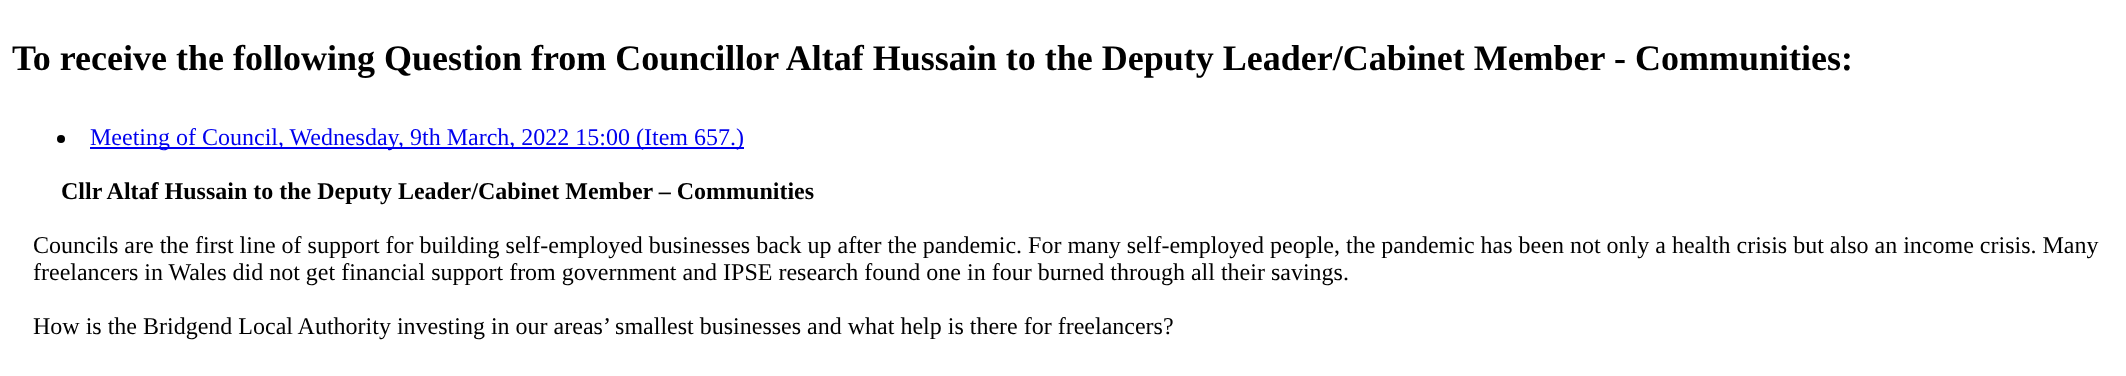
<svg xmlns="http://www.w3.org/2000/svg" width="2126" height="376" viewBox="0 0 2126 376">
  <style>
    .t1 { font: bold 36px Liberation Serif; fill: #000; }
    .t2 { font: 24px Liberation Serif; fill: #00e; }
    .t3 { font: bold 24px Liberation Serif; fill: #000; }
    .t4 { font: 24px Liberation Serif; fill: #000; }
  </style>
  <rect width="100%" height="100%" fill="#fff"/>
  <text x="12" y="70" class="t1">To receive the following Question from Councillor Altaf Hussain to the Deputy Leader/Cabinet Member - Communities:</text>
  <circle cx="61" cy="139" r="4" fill="#000"/>
  <rect x="90" y="147" width="654" height="2" fill="#00e"/>
  <text x="90" y="145" class="t2">Meeting of Council, Wednesday, 9th March, 2022 15:00 (Item 657.)</text>
  <text x="61" y="199" class="t3">Cllr Altaf Hussain to the Deputy Leader/Cabinet Member – Communities</text>
  <text x="33" y="253" class="t4">Councils are the first line of support for building self-employed businesses back up after the pandemic. For many self-employed people, the pandemic has been not only a health crisis but also an income crisis. Many</text>
  <text x="33" y="280" class="t4">freelancers in Wales did not get financial support from government and IPSE research found one in four burned through all their savings.</text>
  <text x="33" y="334" class="t4">How is the Bridgend Local Authority investing in our areas’ smallest businesses and what help is there for freelancers?</text>
</svg>
